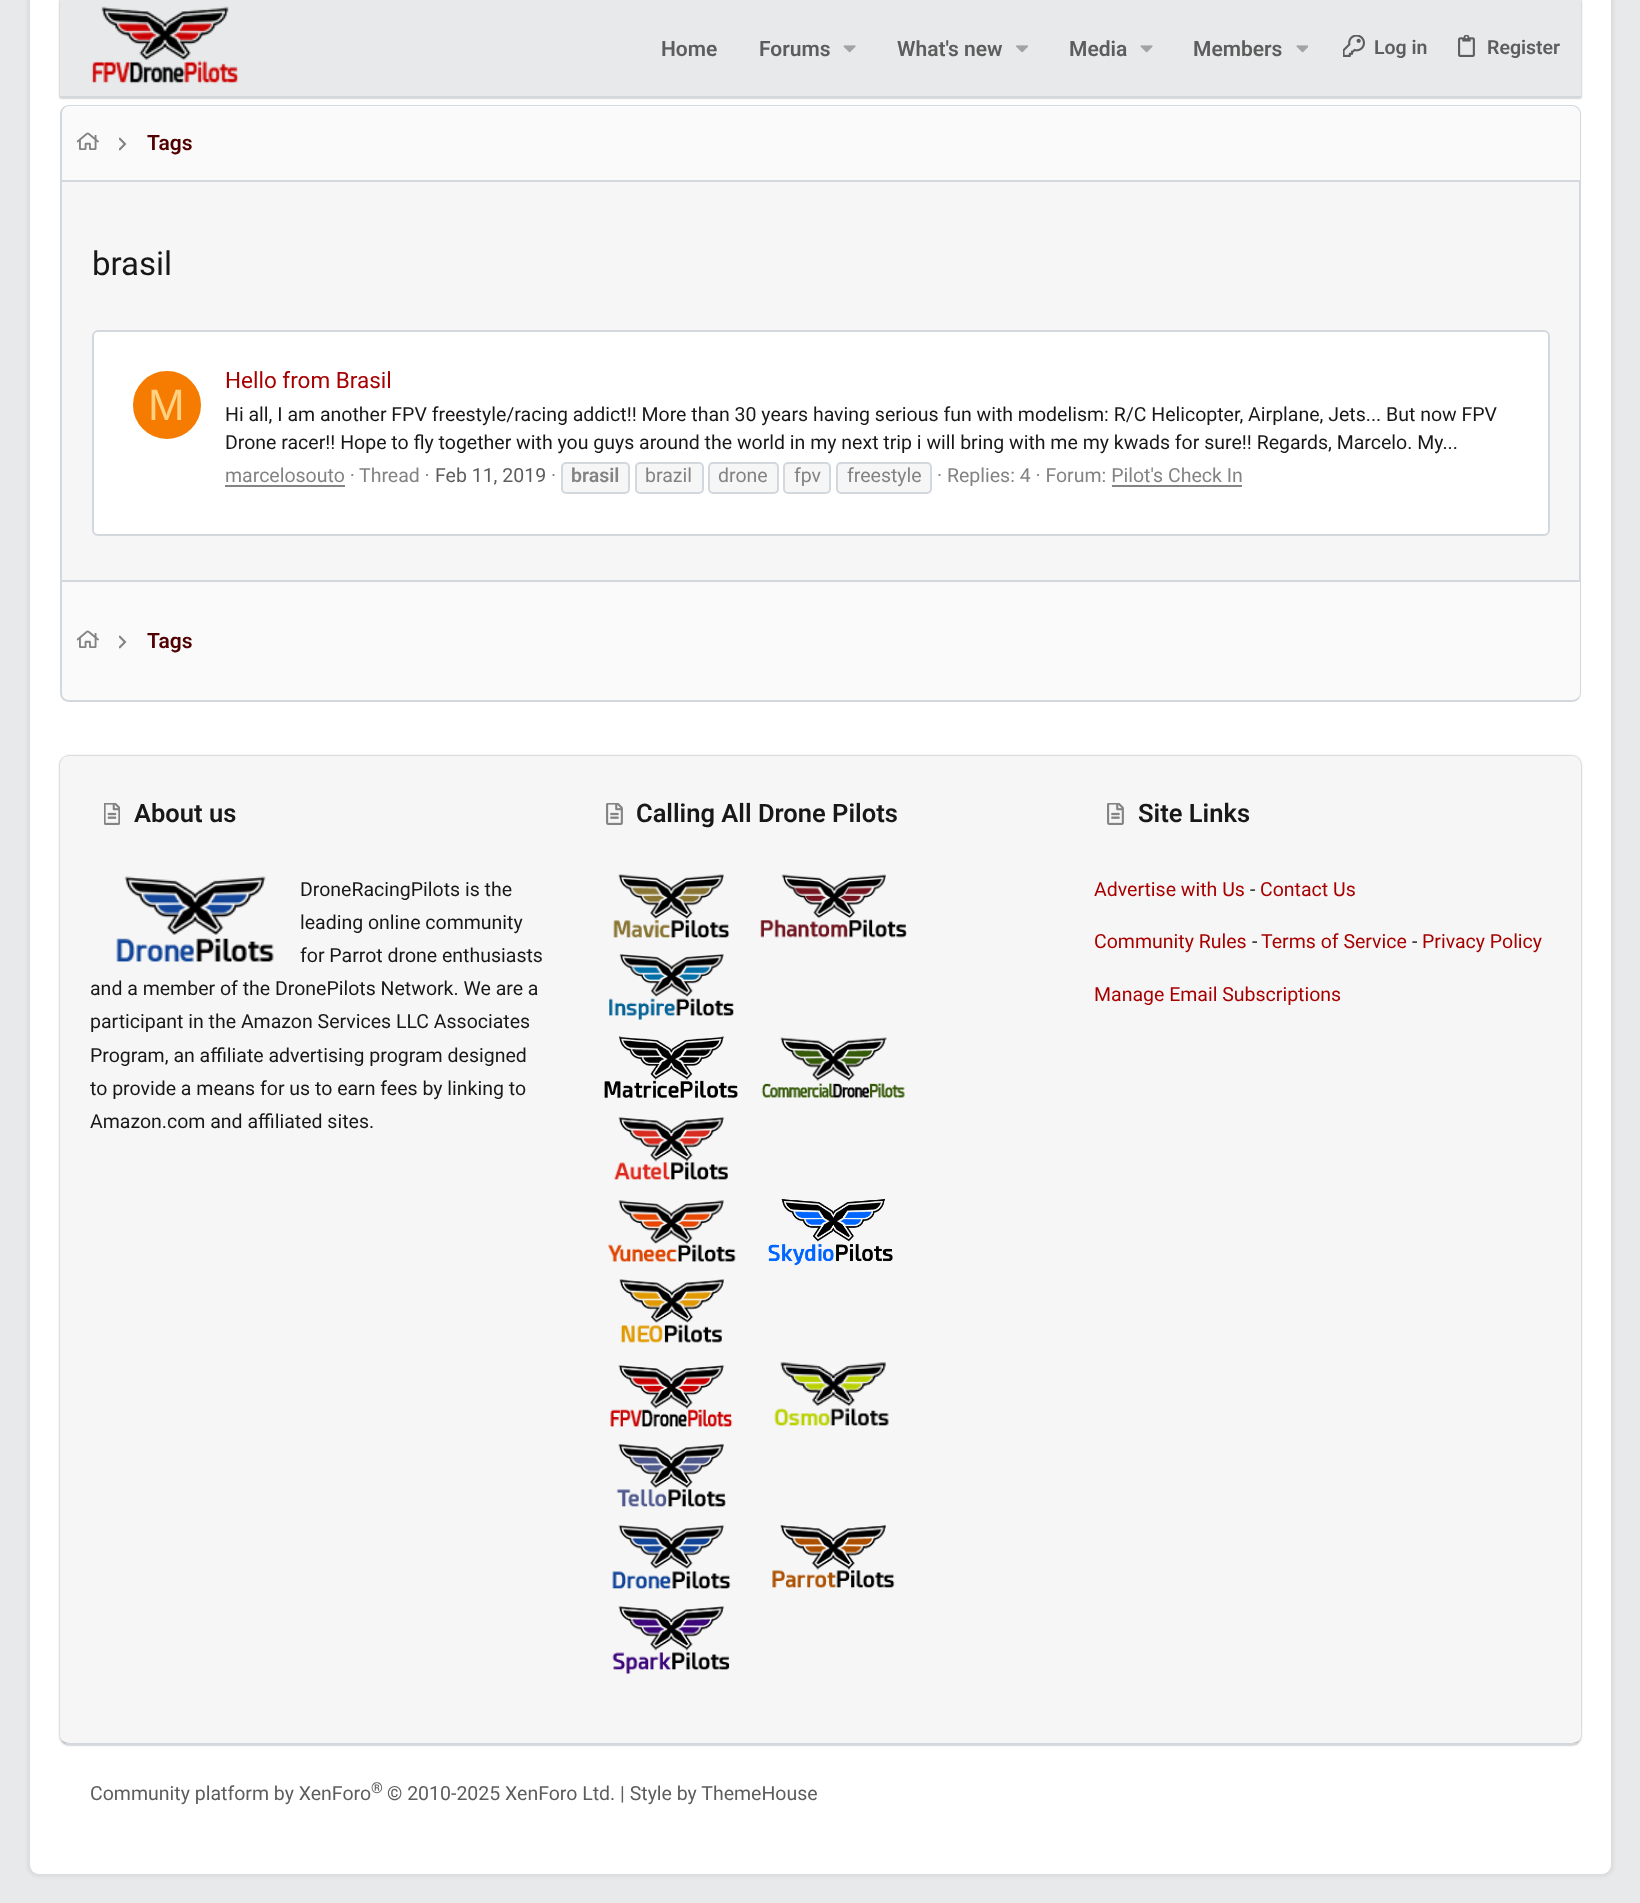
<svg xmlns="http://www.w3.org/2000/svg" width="1640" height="1903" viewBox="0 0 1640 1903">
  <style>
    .t1 { font: 600 21px Roboto; fill: #5d5d5d; }
    .t2 { font: 600 19.5px Roboto; fill: #5d5d5d; }
    .t3 { font: 600 21px Roboto; fill: #500000; }
    .t4 { font: 33px Roboto; fill: #181818; }
    .t5 { font: 44px Liberation Sans; fill: #ffd180; }
    .t6 { font: 22.5px Roboto; fill: #a70000; }
    .t7 { font: 19.5px Roboto; fill: #181818; }
    .t8 { font: 19.5px Roboto; fill: #838383; }
    .t9 { font: 19.5px Roboto; fill: #5d5d5d; }
    .t10 { font: 600 19.5px Roboto; fill: #838383; }
    .t11 { font: 600 25.5px Roboto; fill: #181818; }
    .t12 { font: 19.5px Roboto; fill: #a70000; }
    .t13 { font: 15px Roboto; fill: #5d5d5d; }
  </style>
  <rect width="100%" height="100%" fill="#e8e9ea"/>
  <rect x="27" y="-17" width="1587" height="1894" rx="12" fill="#0000000d" filter="blur(1.5px)"/>
  <rect x="30" y="-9" width="1581" height="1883" rx="9" fill="#fff"/>
  <rect x="60" y="0" width="1521" height="98" fill="#00000066" filter="blur(1px)"/>
  <rect x="60" y="0" width="1521" height="96" fill="#e8e9ea"/>
  <rect x="60" y="96" width="1521" height="2" fill="#d3d8df"/>
  <image x="91" y="6" width="148" height="78" href="images/1.png"/>
  <text x="661" y="56" class="t1">Home</text>
  <text x="759" y="56" class="t1">Forums</text>
  <image x="843" y="45" width="13" height="8" href="images/2.png"/>
  <text x="897" y="56" class="t1">What's new</text>
  <image x="1016" y="45" width="13" height="8" href="images/3.png"/>
  <text x="1069" y="56" class="t1">Media</text>
  <image x="1140" y="45" width="13" height="8" href="images/2.png"/>
  <text x="1193" y="56" class="t1">Members</text>
  <image x="1296" y="45" width="12" height="8" href="images/4.png"/>
  <image x="1343" y="35" width="22" height="22" href="images/5.png"/>
  <text x="1374" y="54" class="t2">Log in</text>
  <image x="1458" y="35" width="17" height="22" href="images/6.png"/>
  <text x="1487" y="54" class="t2">Register</text>
  <path d="M70 107H1572C1576.5 107 1580 110.5 1580 115V180H62V115C62 110.5 65.5 107 70 107Z" fill="#fafafa"/>
  <path d="M69 105H1572C1577 105 1581 109 1581 114V180H60V114C60 109 64 105 69 105ZM69 106H1572C1576 106 1580 110 1580 114V180H62V114C62 110 65 106 69 106Z" fill="#d3d8df" fill-rule="evenodd"/>
  <image x="76" y="132" width="23" height="18" href="images/7.png"/>
  <image x="119" y="137" width="8" height="14" href="images/8.png"/>
  <text x="147" y="150" class="t3">Tags</text>
  <rect x="61" y="181" width="1519" height="400" fill="#f6f6f6" stroke="#d3d8df" stroke-width="2"/>
  <text x="92" y="275" class="t4">brasil</text>
  <rect x="93" y="331" width="1456" height="204" rx="5" fill="#fff" stroke="#d3d8df" stroke-width="2"/>
  <circle cx="167" cy="405" r="35" fill="#f57c00" stroke="#fff" stroke-width="2"/>
  <text x="148" y="420" class="t5">M</text>
  <text x="225" y="388" class="t6">Hello from Brasil</text>
  <text x="225" y="421" class="t7">Hi all, I am another FPV freestyle/racing addict!! More than 30 years having serious fun with modelism: R/C Helicopter, Airplane, Jets... But now FPV</text>
  <text x="225" y="449" class="t7">Drone racer!! Hope to fly together with you guys around the world in my next trip i will bring with me my kwads for sure!! Regards, Marcelo. My...</text>
  <text x="225" y="482" class="t8">marcelosouto ·</text>
  <rect x="225" y="485" width="120" height="2" fill="#838383"/>
  <text x="359" y="482" class="t8">Thread ·</text>
  <text x="435" y="482" class="t9">Feb 11, 2019</text>
  <text x="551" y="482" class="t8">·</text>
  <rect x="562" y="463" width="67" height="30" rx="4" fill="#f6f6f6" stroke="#d3d8df" stroke-width="2"/>
  <text x="571" y="482" class="t10">brasil</text>
  <rect x="636" y="463" width="67" height="30" rx="4" fill="#f6f6f6" stroke="#d3d8df" stroke-width="2"/>
  <text x="645" y="482" class="t8">brazil</text>
  <rect x="709" y="463" width="69" height="30" rx="4" fill="#f6f6f6" stroke="#d3d8df" stroke-width="2"/>
  <text x="718" y="482" class="t8">drone</text>
  <rect x="784" y="463" width="46" height="30" rx="4" fill="#f6f6f6" stroke="#d3d8df" stroke-width="2"/>
  <text x="794" y="482" class="t8">fpv</text>
  <rect x="837" y="463" width="94" height="30" rx="4" fill="#f6f6f6" stroke="#d3d8df" stroke-width="2"/>
  <text x="847" y="482" class="t8">freestyle</text>
  <text x="937" y="482" class="t8">· Replies: 4 · Forum: Pilot's Check In</text>
  <rect x="1112" y="485" width="130" height="2" fill="#838383"/>
  <path d="M62 582H1580V693C1580 697.5 1576.5 701 1572 701H70C65.5 701 62 697.5 62 693Z" fill="#fafafa"/>
  <path d="M60 582H1581V693C1581 698 1577 702 1572 702H69C64 702 60 698 60 693ZM62 582H1580V693C1580 697 1576 700 1572 700H69C65 700 62 697 62 693Z" fill="#d3d8df" fill-rule="evenodd"/>
  <image x="76" y="630" width="23" height="18" href="images/7.png"/>
  <image x="119" y="635" width="8" height="14" href="images/8.png"/>
  <text x="147" y="648" class="t3">Tags</text>
  <rect x="60" y="756" width="1521" height="989" rx="9" fill="#00000066" filter="blur(1px)"/>
  <path d="M69 756H1572C1577 756 1581 760 1581 765V1736C1581 1740 1577 1743 1572 1743H69C64 1743 60 1740 60 1736V765C60 760 64 756 69 756Z" fill="#f6f6f6"/>
  <rect x="65" y="1743" width="1512" height="2" fill="#d3d8df"/>
  <image x="104" y="803" width="16" height="22" href="images/9.png"/>
  <text x="134" y="822" class="t11">About us</text>
  <image x="116" y="876" width="158" height="86" href="images/10.png"/>
  <text x="300" y="896" class="t7">DroneRacingPilots is the</text>
  <text x="300" y="929" class="t7">leading online community</text>
  <text x="300" y="962" class="t7">for Parrot drone enthusiasts</text>
  <text x="90" y="995" class="t7">and a member of the DronePilots Network. We are a</text>
  <text x="90" y="1028" class="t7">participant in the Amazon Services LLC Associates</text>
  <text x="90" y="1062" class="t7">Program, an affiliate advertising program designed</text>
  <text x="90" y="1095" class="t7">to provide a means for us to earn fees by linking to</text>
  <text x="90" y="1128" class="t7">Amazon.com and affiliated sites.</text>
  <image x="606" y="803" width="17" height="22" href="images/11.png"/>
  <text x="636" y="822" class="t11">Calling All Drone Pilots</text>
  <image x="613" y="874" width="117" height="64" href="images/12.png"/>
  <image x="760" y="874" width="147" height="64" href="images/13.png"/>
  <image x="609" y="954" width="125" height="66" href="images/14.png"/>
  <image x="604" y="1036" width="134" height="63" href="images/15.png"/>
  <image x="761" y="1037" width="144" height="62" href="images/16.png"/>
  <image x="614" y="1117" width="114" height="63" href="images/17.png"/>
  <image x="608" y="1200" width="128" height="62" href="images/18.png"/>
  <image x="768" y="1198" width="125" height="68" href="images/19.png"/>
  <image x="619" y="1279" width="105" height="64" href="images/20.png"/>
  <image x="610" y="1365" width="123" height="62" href="images/21.png"/>
  <image x="774" y="1362" width="115" height="64" href="images/22.png"/>
  <image x="616" y="1444" width="110" height="63" href="images/23.png"/>
  <image x="612" y="1525" width="119" height="64" href="images/24.png"/>
  <image x="772" y="1525" width="123" height="63" href="images/25.png"/>
  <image x="612" y="1606" width="118" height="68" href="images/26.png"/>
  <image x="1107" y="803" width="17" height="22" href="images/11.png"/>
  <text x="1138" y="822" class="t11">Site Links</text>
  <text x="1094" y="896" class="t12">Advertise with Us</text>
  <text x="1250" y="896" class="t7">-</text>
  <text x="1260" y="896" class="t12">Contact Us</text>
  <text x="1094" y="948" class="t12">Community Rules</text>
  <text x="1252" y="948" class="t7">-</text>
  <text x="1261" y="948" class="t12">Terms of Service</text>
  <text x="1412" y="948" class="t7">-</text>
  <text x="1422" y="948" class="t12">Privacy Policy</text>
  <text x="1094" y="1001" class="t12">Manage Email Subscriptions</text>
  <text x="90" y="1800" class="t9">Community platform by XenForo</text>
  <text x="371" y="1793" class="t13">®</text>
  <text x="387" y="1800" class="t9">© 2010-2025 XenForo Ltd. | Style by ThemeHouse</text>
</svg>
